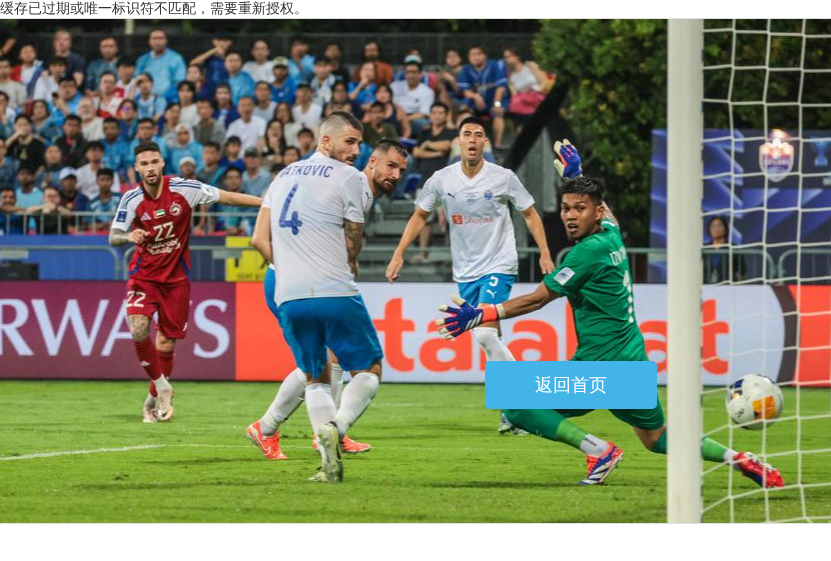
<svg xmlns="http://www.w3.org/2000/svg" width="831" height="561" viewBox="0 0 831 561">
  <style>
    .t1 { font: 500 14px WenQuanYi Zen Hei; fill: #333; }
    .t2 { font: 500 18px WenQuanYi Zen Hei; fill: #fff; }
  </style>
  <rect width="100%" height="100%" fill="#fff"/>
  <text x="0" y="13" class="t1">缓存已过期或唯一标识符不匹配，需要重新授权。</text>
  <rect x="0" y="18" width="831" height="1" fill="#e0e0e0"/>
  <rect x="0" y="523" width="831" height="1" fill="#e0e0e0"/>
  <image x="0" y="19" width="831" height="504" href="images/1.png"/>
  <rect x="485" y="361" width="172" height="48" rx="5" fill="#43b4e8"/>
  <text x="535" y="391" class="t2">返回首页</text>
</svg>
